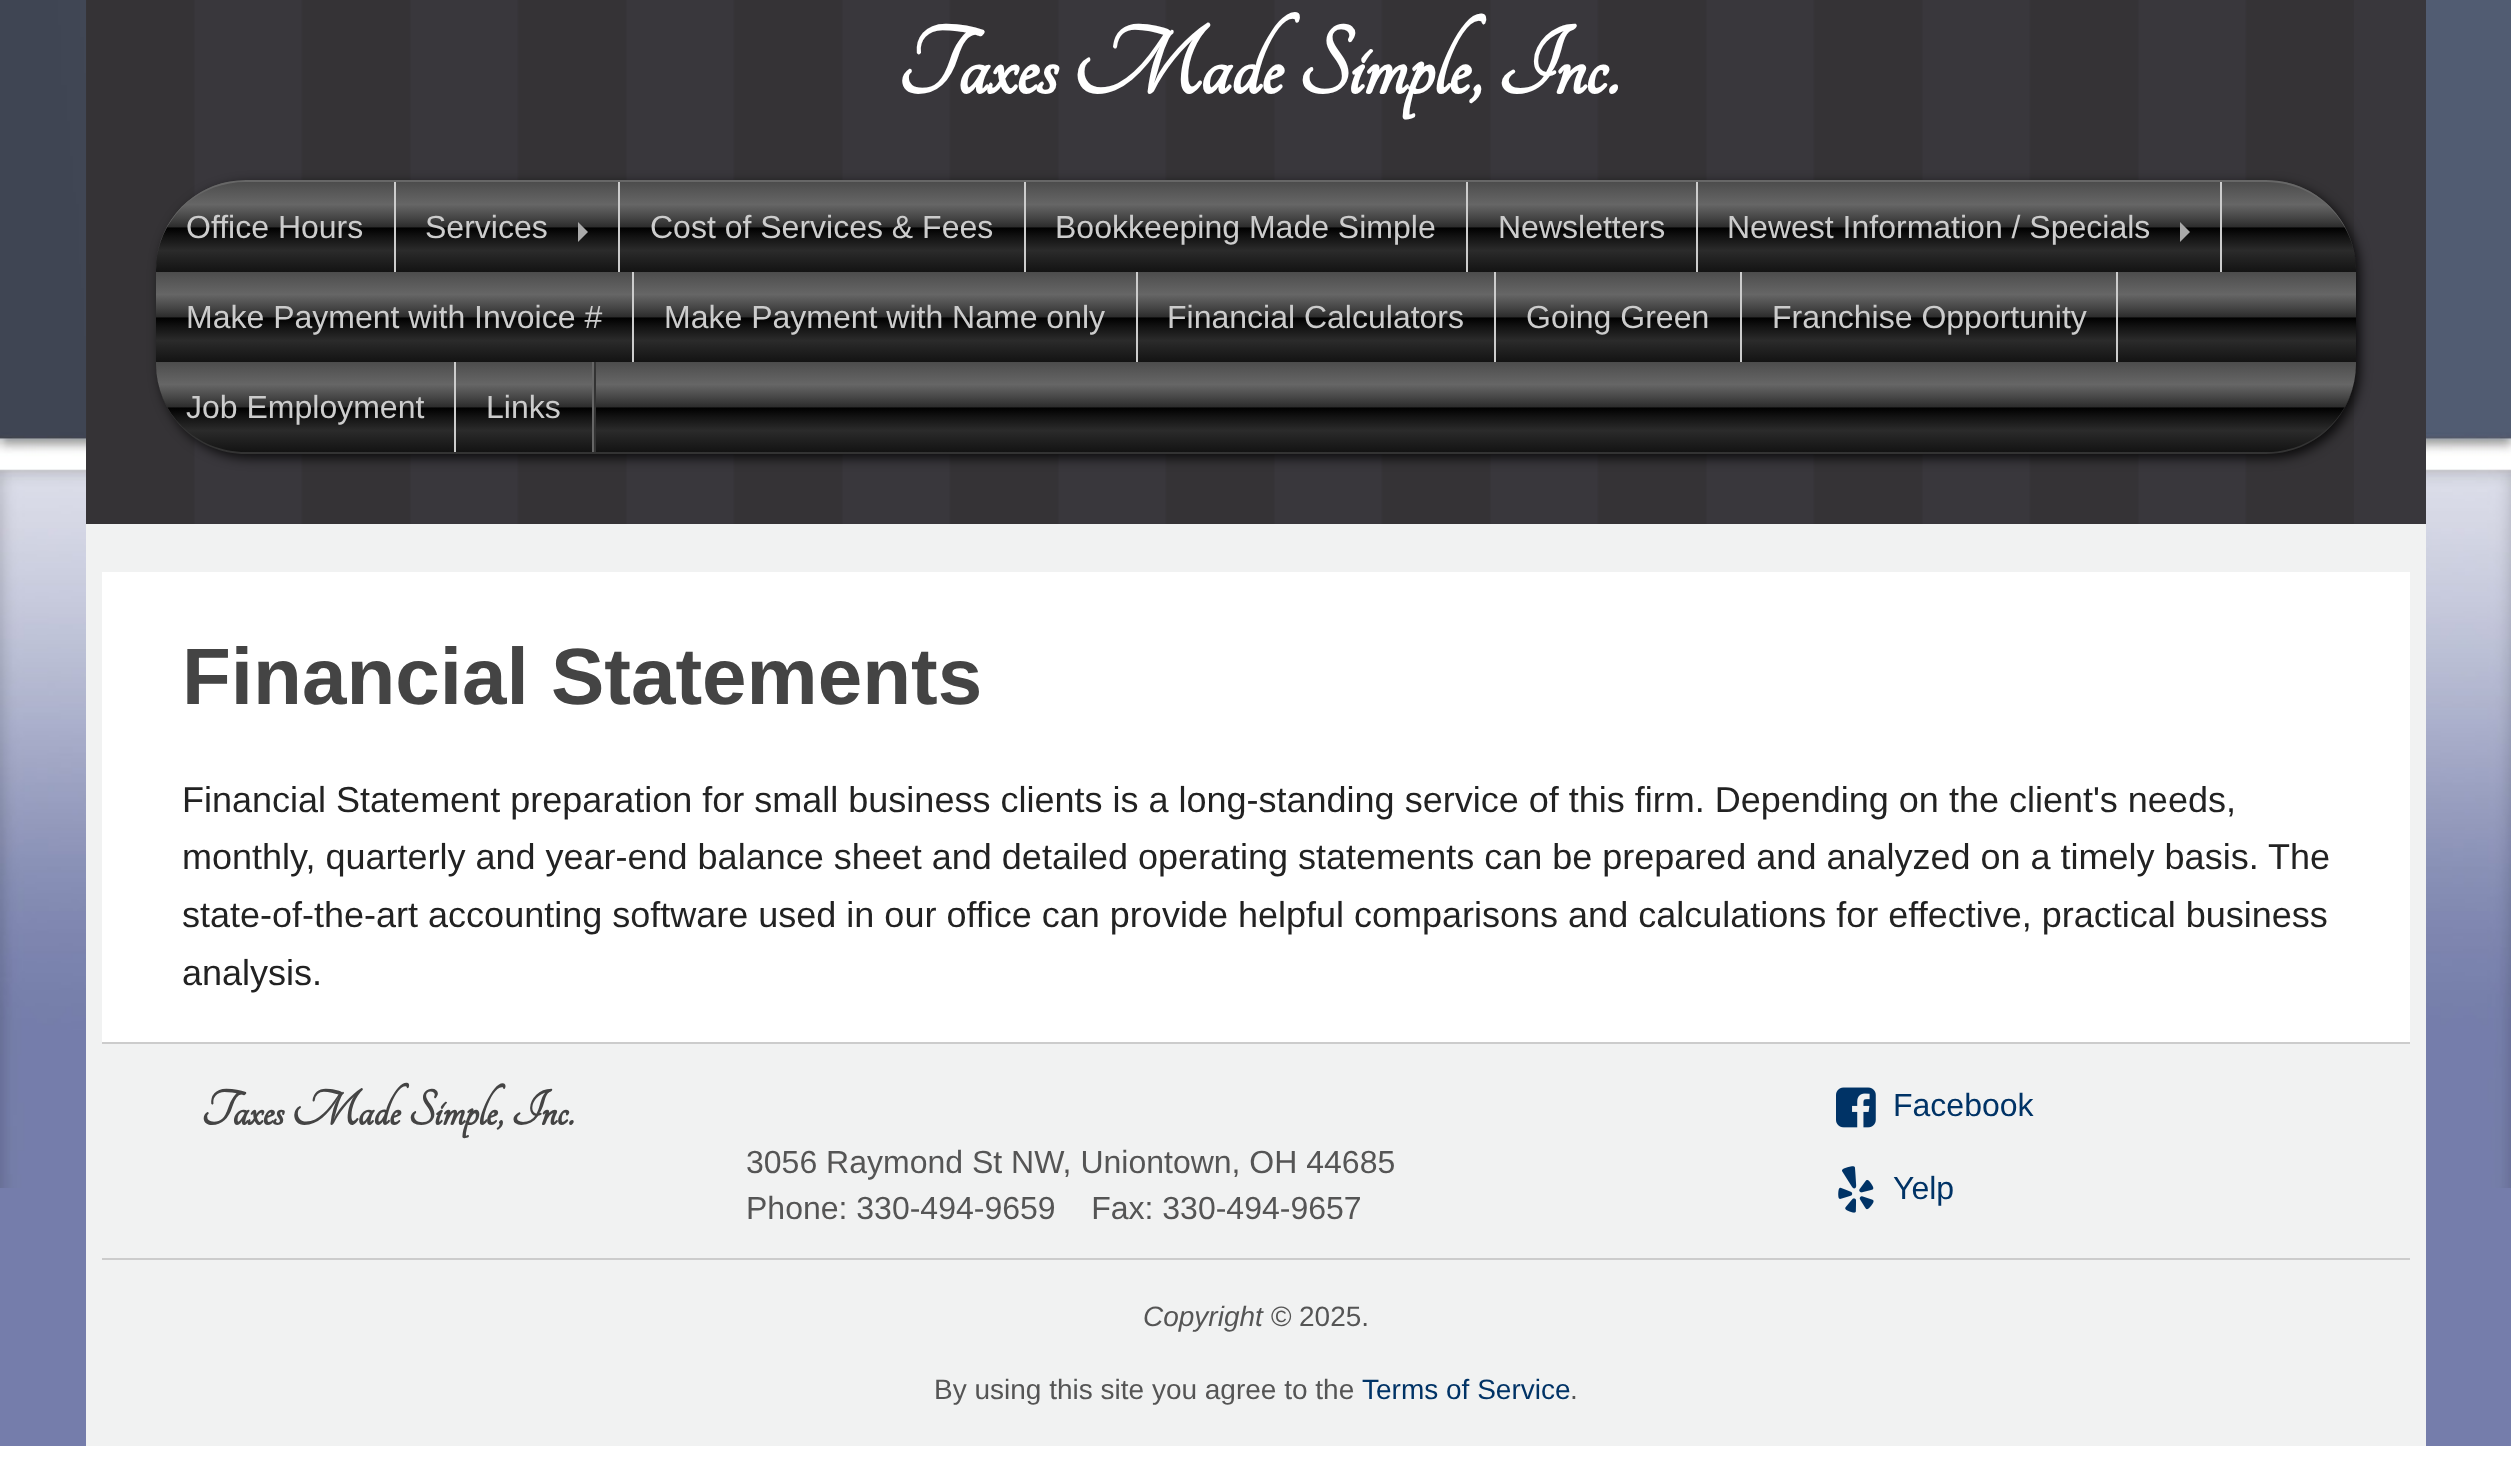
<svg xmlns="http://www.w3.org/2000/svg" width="2511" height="1484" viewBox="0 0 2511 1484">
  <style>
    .t1 { font: bold 104.5px Tangerine; fill: #fff; }
    .t2 { font: 32px Liberation Sans; fill: #ccc; }
    .t3 { font: bold 80px Liberation Sans; fill: #444; }
    .t4 { font: 36px Liberation Sans; fill: #222; }
    .t5 { font: bold 54px Tangerine; fill: #444; }
    .t6 { font: 32px Liberation Sans; fill: #555; }
    .t7 { font: 32px Liberation Sans; fill: #036; }
    .t8 { font: italic 28px Liberation Sans; fill: #555; }
    .t9 { font: 28px Liberation Sans; fill: #555; }
    .t10 { font: 28px Liberation Sans; fill: #036; }
  </style>
  <defs>
    <clipPath id="clip1"><rect x="156" y="180" width="2200" height="274" rx="90"/></clipPath>
    <linearGradient id="g1" gradientUnits="userSpaceOnUse" x1="1256" y1="182" x2="1256" y2="272"><stop offset="0" stop-color="#4c4c4c"/><stop offset="0.12" stop-color="#595959"/><stop offset="0.25" stop-color="#666"/><stop offset="0.39" stop-color="#474747"/><stop offset="0.5" stop-color="#2c2c2c"/><stop offset="0.51" stop-color="#000"/><stop offset="0.6" stop-color="#111"/><stop offset="0.76" stop-color="#2b2b2b"/><stop offset="0.91" stop-color="#1c1c1c"/><stop offset="1" stop-color="#131313"/></linearGradient>
    <linearGradient id="g2" gradientUnits="userSpaceOnUse" x1="1256" y1="272" x2="1256" y2="362"><stop offset="0" stop-color="#4c4c4c"/><stop offset="0.12" stop-color="#595959"/><stop offset="0.25" stop-color="#666"/><stop offset="0.39" stop-color="#474747"/><stop offset="0.5" stop-color="#2c2c2c"/><stop offset="0.51" stop-color="#000"/><stop offset="0.6" stop-color="#111"/><stop offset="0.76" stop-color="#2b2b2b"/><stop offset="0.91" stop-color="#1c1c1c"/><stop offset="1" stop-color="#131313"/></linearGradient>
    <linearGradient id="g3" gradientUnits="userSpaceOnUse" x1="1256" y1="362" x2="1256" y2="452"><stop offset="0" stop-color="#4c4c4c"/><stop offset="0.12" stop-color="#595959"/><stop offset="0.25" stop-color="#666"/><stop offset="0.39" stop-color="#474747"/><stop offset="0.5" stop-color="#2c2c2c"/><stop offset="0.51" stop-color="#000"/><stop offset="0.6" stop-color="#111"/><stop offset="0.76" stop-color="#2b2b2b"/><stop offset="0.91" stop-color="#1c1c1c"/><stop offset="1" stop-color="#131313"/></linearGradient>
  </defs>
  <rect width="100%" height="100%" fill="#fff"/>
  <rect x="0" y="1188" width="2511" height="258" fill="#757dab"/>
  <image x="0" y="0" width="2511" height="1188" href="images/1.png"/>
  <rect x="102" y="572" width="2308" height="470" fill="#fff"/>
  <rect x="86" y="0" width="2340" height="524" fill="#39373c"/>
  <image x="86" y="0" width="2268" height="524" href="images/2.png"/>
  <text x="897" y="94" class="t1">Taxes Made Simple, Inc.</text>
  <rect x="160" y="184" width="2200" height="274" rx="90" fill="#000000cc" filter="blur(6px)"/>
  <g clip-path="url(#clip1)">
    <rect x="156" y="182" width="2200" height="90" fill="url(#g1)"/>
  </g>
  <rect x="156" y="272" width="2200" height="90" fill="url(#g2)"/>
  <g clip-path="url(#clip1)">
    <rect x="156" y="362" width="2200" height="90" fill="url(#g3)"/>
  </g>
  <path d="M246 180C196 180 156 220 156 270C156 221 196 182 246 182H2266C2316 182 2356 221 2356 270C2356 220 2316 180 2266 180Z" fill="#676767"/>
  <path d="M2266 454C2316 454 2356 414 2356 364C2356 413 2316 452 2266 452H246C196 452 156 413 156 364C156 414 196 454 246 454Z" fill="#333"/>
  <rect x="394" y="182" width="2" height="90" fill="#ccc"/>
  <text x="186" y="238" class="t2">Office Hours</text>
  <rect x="618" y="182" width="2" height="90" fill="#ccc"/>
  <text x="425" y="238" class="t2">Services</text>
  <path d="M578 242V222L588 232Z" fill="#aaa"/>
  <rect x="1024" y="182" width="2" height="90" fill="#ccc"/>
  <text x="650" y="238" class="t2">Cost of Services &amp; Fees</text>
  <rect x="1466" y="182" width="2" height="90" fill="#ccc"/>
  <text x="1055" y="238" class="t2">Bookkeeping Made Simple</text>
  <rect x="1696" y="182" width="2" height="90" fill="#ccc"/>
  <text x="1498" y="238" class="t2">Newsletters</text>
  <rect x="2220" y="182" width="2" height="90" fill="#ccc"/>
  <text x="1727" y="238" class="t2">Newest Information / Specials</text>
  <path d="M2180 242V222L2190 232Z" fill="#aaa"/>
  <rect x="632" y="272" width="2" height="90" fill="#ccc"/>
  <text x="186" y="328" class="t2">Make Payment with Invoice #</text>
  <rect x="1136" y="272" width="2" height="90" fill="#ccc"/>
  <text x="664" y="328" class="t2">Make Payment with Name only</text>
  <rect x="1494" y="272" width="2" height="90" fill="#ccc"/>
  <text x="1167" y="328" class="t2">Financial Calculators</text>
  <rect x="1740" y="272" width="2" height="90" fill="#ccc"/>
  <text x="1526" y="328" class="t2">Going Green</text>
  <rect x="2116" y="272" width="2" height="90" fill="#ccc"/>
  <text x="1772" y="328" class="t2">Franchise Opportunity</text>
  <rect x="454" y="362" width="2" height="90" fill="#ccc"/>
  <text x="186" y="418" class="t2">Job Employment</text>
  <rect x="594" y="362" width="2" height="90" fill="#333"/>
  <rect x="592" y="362" width="2" height="90" fill="#666"/>
  <text x="486" y="418" class="t2">Links</text>
  <rect x="102" y="524" width="2308" height="48" fill="#f1f2f2"/>
  <rect x="2410" y="524" width="16" height="518" fill="#f1f2f2"/>
  <rect x="86" y="524" width="16" height="518" fill="#f1f2f2"/>
  <text x="182" y="704" class="t3">Financial Statements</text>
  <text x="182" y="812" class="t4">Financial Statement preparation for small business clients is a long-standing service of this firm. Depending on the client's needs,</text>
  <text x="182" y="869" class="t4">monthly, quarterly and year-end balance sheet and detailed operating statements can be prepared and analyzed on a timely basis. The</text>
  <text x="182" y="927" class="t4">state-of-the-art accounting software used in our office can provide helpful comparisons and calculations for effective, practical business</text>
  <text x="182" y="985" class="t4">analysis.</text>
  <rect x="86" y="1042" width="2340" height="404" fill="#f1f2f2"/>
  <rect x="102" y="1042" width="2308" height="2" fill="#ccc"/>
  <text x="201" y="1125" class="t5">Taxes Made Simple, Inc.</text>
  <text x="746" y="1173" class="t6">3056 Raymond St NW, Uniontown, OH 44685</text>
  <text x="746" y="1219" class="t6" xml:space="preserve">Phone: 330-494-9659    Fax: 330-494-9657</text>
  <image x="1836" y="1087" width="40" height="41" href="images/3.png"/>
  <text x="1893" y="1116" class="t7">Facebook</text>
  <image x="1838" y="1166" width="36" height="47" href="images/4.png"/>
  <text x="1893" y="1199" class="t7">Yelp</text>
  <rect x="102" y="1258" width="2308" height="2" fill="#ccc"/>
  <text x="1143" y="1326" class="t8">Copyright ©</text>
  <text x="1299" y="1326" class="t9">2025.</text>
  <text x="934" y="1399" class="t9">By using this site you agree to the</text>
  <text x="1362" y="1399" class="t10">Terms of Service</text>
  <text x="1570" y="1399" class="t9">.</text>
</svg>
